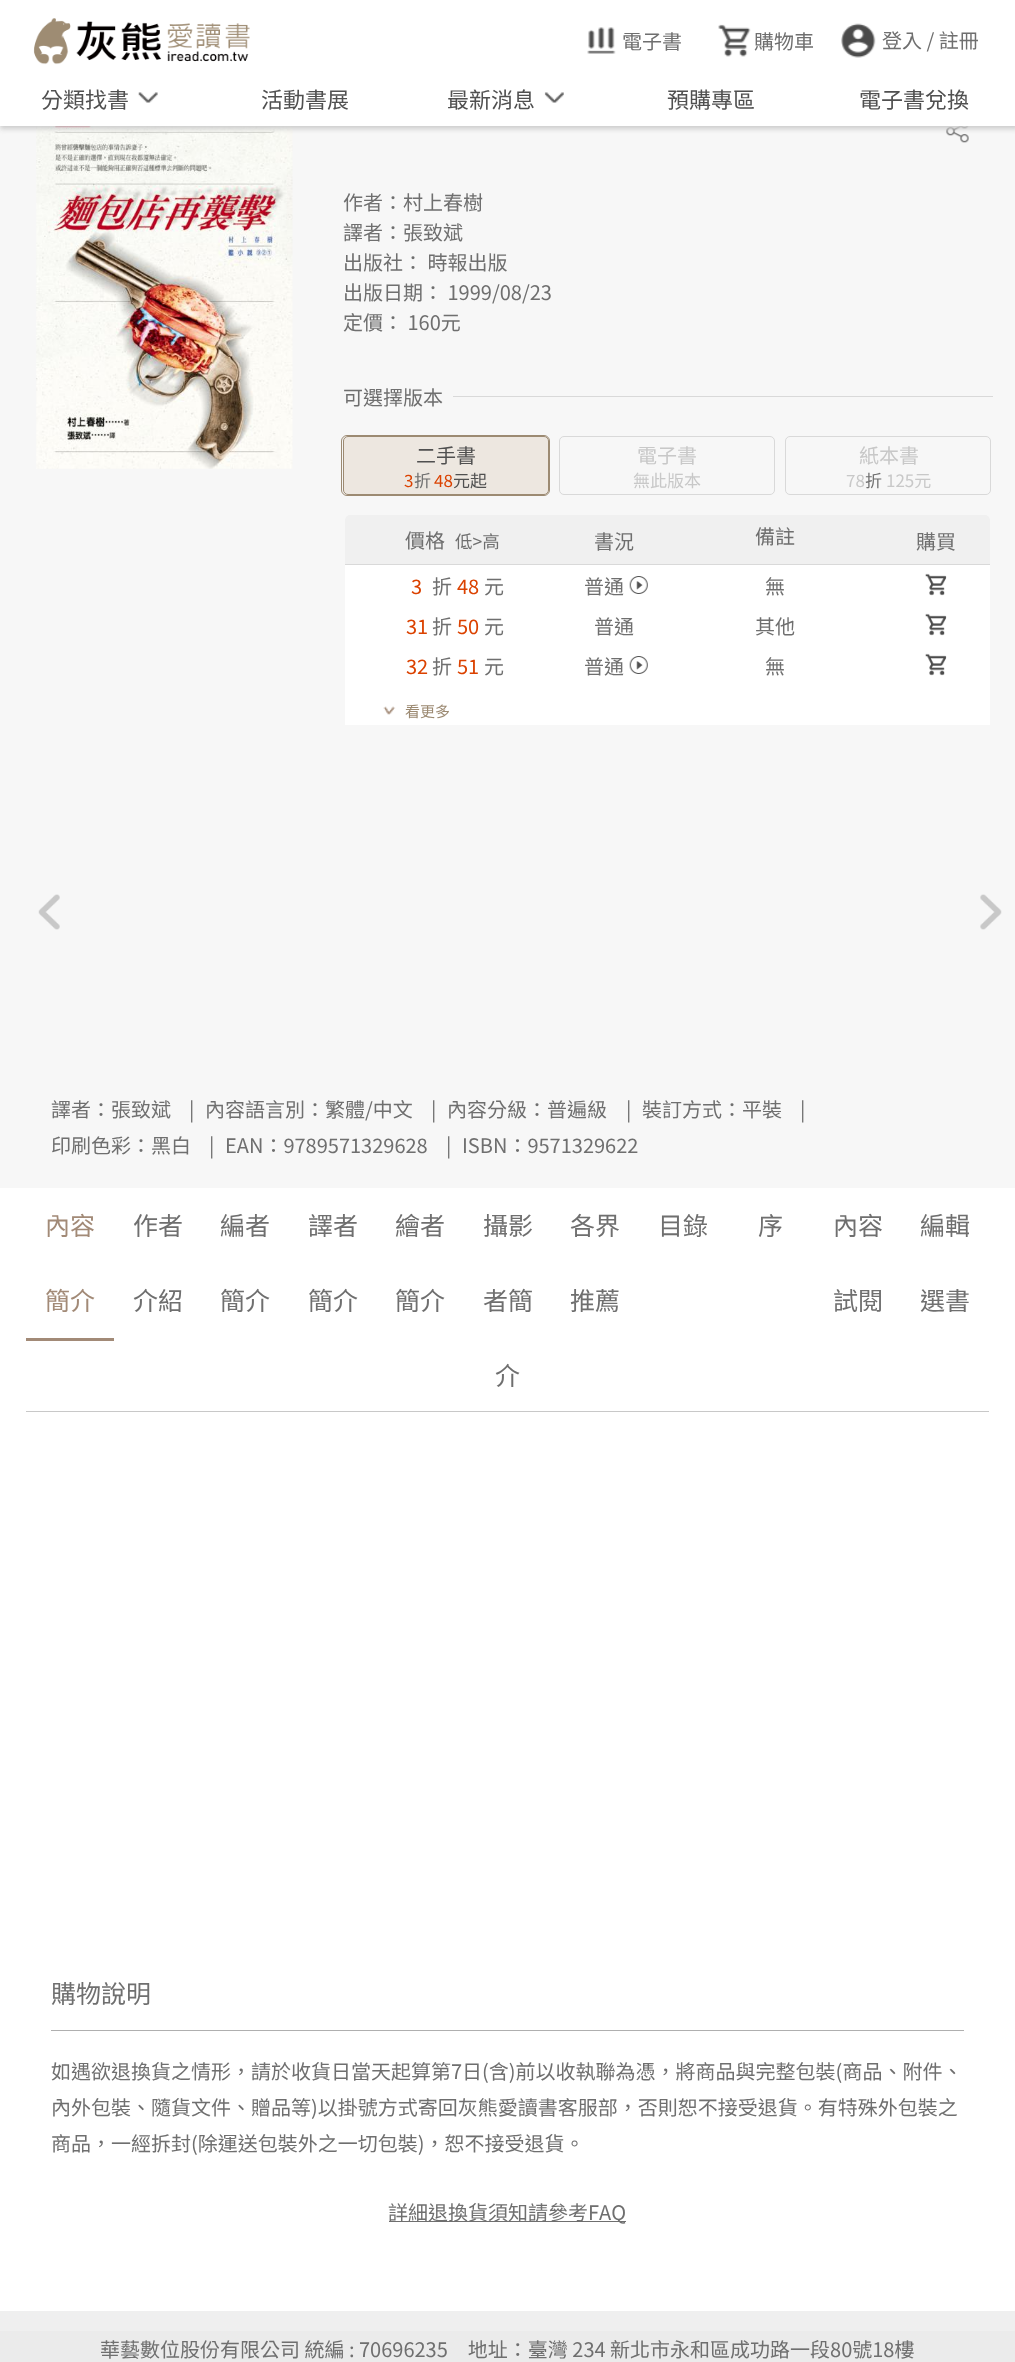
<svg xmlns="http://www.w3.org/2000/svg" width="1015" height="2362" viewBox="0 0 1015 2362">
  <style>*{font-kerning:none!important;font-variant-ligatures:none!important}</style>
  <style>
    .t1 { font: 100 20px Noto Sans TC; fill: #6f6f6f; }
    .t2 { font: 100 22px Noto Sans TC; fill: #505050; }
    .t3 { font: 100 20px Noto Sans TC; fill: #505050; }
    .t4 { font: 100 17px Noto Sans TC; fill: #db4200; }
    .t5 { font: 100 17px Noto Sans TC; fill: #6f6f6f; }
    .t6 { font: 100 17px Noto Sans TC; fill: #505050; }
    .t7 { font: 100 20px Noto Sans TC; fill: #c8c8c8; }
    .t8 { font: 100 17px Noto Sans TC; fill: #c8c8c8; }
    .t9 { font: 100 17.5px Noto Sans TC; fill: #6f6f6f; }
    .t10 { font: 100 20px Noto Sans TC; fill: #db4200; }
    .t11 { font: 100 15px Noto Sans TC; fill: #9c8a72; }
    .t12 { font: 100 25px Noto Sans TC; fill: #a28a77; }
    .t13 { font: 100 25px Noto Sans TC; fill: #6f6f6f; }
  </style>
  <rect width="100%" height="100%" fill="#f7f7f7"/>
  <image x="36" y="126" width="257" height="343" href="images/7.png"/>
  <image x="946" y="126" width="23" height="17" href="images/8.png"/>
  <rect x="0" y="0" width="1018" height="129" fill="#ccc" filter="blur(2.5px)"/>
  <rect x="0" y="0" width="1015" height="126" fill="#fff"/>
  <image x="33" y="18" width="217" height="47" href="images/1.png"/>
  <image x="587" y="27" width="29" height="27" href="images/2.png"/>
  <text x="622" y="49" class="t1">電子書</text>
  <image x="718" y="24" width="33" height="33" href="images/3.png"/>
  <text x="754" y="49" class="t1">購物車</text>
  <image x="841" y="23" width="35" height="35" href="images/4.png"/>
  <text x="882" y="48" class="t1">登入 / 註冊</text>
  <text x="41" y="108" class="t2">分類找書</text>
  <image x="138" y="92" width="20" height="11" href="images/5.png"/>
  <text x="261" y="108" class="t2">活動書展</text>
  <text x="447" y="108" class="t2">最新消息</text>
  <image x="544" y="92" width="20" height="11" href="images/6.png"/>
  <text x="667" y="108" class="t2">預購專區</text>
  <text x="859" y="108" class="t2">電子書兌換</text>
  <text x="343" y="210" class="t1">作者：村上春樹</text>
  <text x="343" y="240" class="t1">譯者：張致斌</text>
  <text x="343" y="270" class="t1">出版社： 時報出版</text>
  <text x="343" y="300" class="t1">出版日期： 1999/08/23</text>
  <text x="343" y="330" class="t1">定價： 160元</text>
  <text x="343" y="405" class="t1">可選擇版本</text>
  <rect x="453" y="396" width="540" height="1" fill="#d9d9d9"/>
  <rect x="343.5" y="436.5" width="205" height="58" rx="4.5" fill="#ede7e0" stroke="#9c8a72"/>
  <rect x="341.5" y="435.5" width="208" height="60" rx="5.5" fill="none" stroke="#9c8a72"/>
  <text x="416" y="463" class="t3">二手書</text>
  <text x="404" y="487" class="t4">3</text>
  <text x="414" y="487" class="t5">折</text>
  <text x="434" y="487" class="t4">48</text>
  <text x="453" y="487" class="t6">元起</text>
  <rect x="559.5" y="436.5" width="215" height="58" rx="4.5" fill="none" stroke="#d9d9d9"/>
  <text x="637" y="463" class="t7">電子書</text>
  <text x="633" y="487" class="t8">無此版本</text>
  <rect x="785.5" y="436.5" width="205" height="58" rx="4.5" fill="none" stroke="#d9d9d9"/>
  <text x="859" y="463" class="t7">紙本書</text>
  <text x="846" y="487" class="t8">78</text>
  <text x="865" y="487" class="t5">折</text>
  <text x="886" y="487" class="t8">125元</text>
  <path d="M350 515H985C988 515 990 517 990 520V725H345V520C345 517 347 515 350 515Z" fill="#fff"/>
  <rect x="345" y="564" width="645" height="1" fill="#d9d9d9"/>
  <path d="M350 515H985C988 515 990 517 990 520V564H345V520C345 517 347 515 350 515Z" fill="#f0f0f0"/>
  <text x="405" y="548" class="t1">價格</text>
  <text x="455" y="548" class="t9">低&gt;高</text>
  <text x="594" y="549" class="t1">書況</text>
  <text x="755" y="544" class="t1">備註</text>
  <text x="916" y="549" class="t1">購買</text>
  <text x="411" y="594" class="t10">3</text>
  <text x="432" y="594" class="t1">折</text>
  <text x="457" y="594" class="t10">48</text>
  <text x="484" y="594" class="t1">元</text>
  <text x="584" y="594" class="t1">普通</text>
  <image x="629" y="576" width="19" height="18" href="images/9.png"/>
  <text x="765" y="594" class="t1">無</text>
  <image x="925" y="573" width="22" height="23" href="images/10.png"/>
  <text x="406" y="634" class="t10">31</text>
  <text x="432" y="634" class="t1">折</text>
  <text x="457" y="634" class="t10">50</text>
  <text x="484" y="634" class="t1">元</text>
  <text x="594" y="634" class="t1">普通</text>
  <text x="755" y="634" class="t1">其他</text>
  <image x="925" y="613" width="22" height="23" href="images/10.png"/>
  <text x="406" y="674" class="t10">32</text>
  <text x="432" y="674" class="t1">折</text>
  <text x="457" y="674" class="t10">51</text>
  <text x="484" y="674" class="t1">元</text>
  <text x="584" y="674" class="t1">普通</text>
  <image x="629" y="656" width="19" height="18" href="images/9.png"/>
  <text x="765" y="674" class="t1">無</text>
  <image x="925" y="653" width="22" height="23" href="images/10.png"/>
  <image x="383" y="706" width="13" height="9" href="images/11.png"/>
  <text x="405" y="717" class="t11">看更多</text>
  <image x="38" y="894" width="22" height="36" href="images/12.png"/>
  <image x="980" y="894" width="22" height="36" href="images/13.png"/>
  <text x="51" y="1117" class="t1">譯者：張致斌</text>
  <text x="189" y="1117" class="t1">|</text>
  <text x="205" y="1117" class="t1">內容語言別：繁體/中文</text>
  <text x="431" y="1117" class="t1">|</text>
  <text x="447" y="1117" class="t1">內容分級：普遍級</text>
  <text x="626" y="1117" class="t1">|</text>
  <text x="642" y="1117" class="t1">裝訂方式：平裝</text>
  <text x="800" y="1117" class="t1">|</text>
  <text x="51" y="1153" class="t1">印刷色彩：黑白</text>
  <text x="209" y="1153" class="t1">|</text>
  <text x="225" y="1153" class="t1">EAN：9789571329628</text>
  <text x="446" y="1153" class="t1">|</text>
  <text x="462" y="1153" class="t1">ISBN：9571329622</text>
  <rect x="0" y="1188" width="1015" height="1123" fill="#fff"/>
  <text x="45" y="1235" class="t12">內容</text>
  <text x="45" y="1310" class="t12">簡介</text>
  <rect x="26" y="1338" width="88" height="3" fill="#a28a77"/>
  <text x="133" y="1235" class="t13">作者</text>
  <text x="133" y="1310" class="t13">介紹</text>
  <text x="220" y="1235" class="t13">編者</text>
  <text x="220" y="1310" class="t13">簡介</text>
  <text x="308" y="1235" class="t13">譯者</text>
  <text x="308" y="1310" class="t13">簡介</text>
  <text x="395" y="1235" class="t13">繪者</text>
  <text x="395" y="1310" class="t13">簡介</text>
  <text x="483" y="1235" class="t13">攝影</text>
  <text x="483" y="1310" class="t13">者簡</text>
  <text x="495" y="1385" class="t13">介</text>
  <text x="570" y="1235" class="t13">各界</text>
  <text x="570" y="1310" class="t13">推薦</text>
  <text x="658" y="1235" class="t13">目錄</text>
  <text x="758" y="1235" class="t13">序</text>
  <text x="833" y="1235" class="t13">內容</text>
  <text x="833" y="1310" class="t13">試閱</text>
  <text x="920" y="1235" class="t13">編輯</text>
  <text x="920" y="1310" class="t13">選書</text>
  <rect x="26" y="1411" width="963" height="1" fill="#c8c8c8"/>
  <text x="51" y="2003" class="t13">購物說明</text>
  <rect x="51" y="2030" width="913" height="1" fill="#afafaf"/>
  <text x="51" y="2079" class="t1">如遇欲退換貨之情形，請於收貨日當天起算第7日(含)前以收執聯為憑，將商品與完整包裝(商品、附件、</text>
  <text x="51" y="2115" class="t1">內外包裝、隨貨文件、贈品等)以掛號方式寄回灰熊愛讀書客服部，否則恕不接受退貨。有特殊外包裝之</text>
  <text x="51" y="2151" class="t1">商品，一經拆封(除運送包裝外之一切包裝)，恕不接受退貨。</text>
  <rect x="389" y="2221" width="237" height="1" fill="#6f6f6f"/>
  <text x="388" y="2220" class="t1">詳細退換貨須知請參考FAQ</text>
  <rect x="0" y="2311" width="1015" height="20" fill="#efefef"/>
  <rect x="0" y="2331" width="1015" height="31" fill="#ebebeb"/>
  <text x="100" y="2357" class="t1">華藝數位股份有限公司 統編 : 70696235　地址：臺灣 234 新北市永和區成功路一段80號18樓</text>
</svg>
